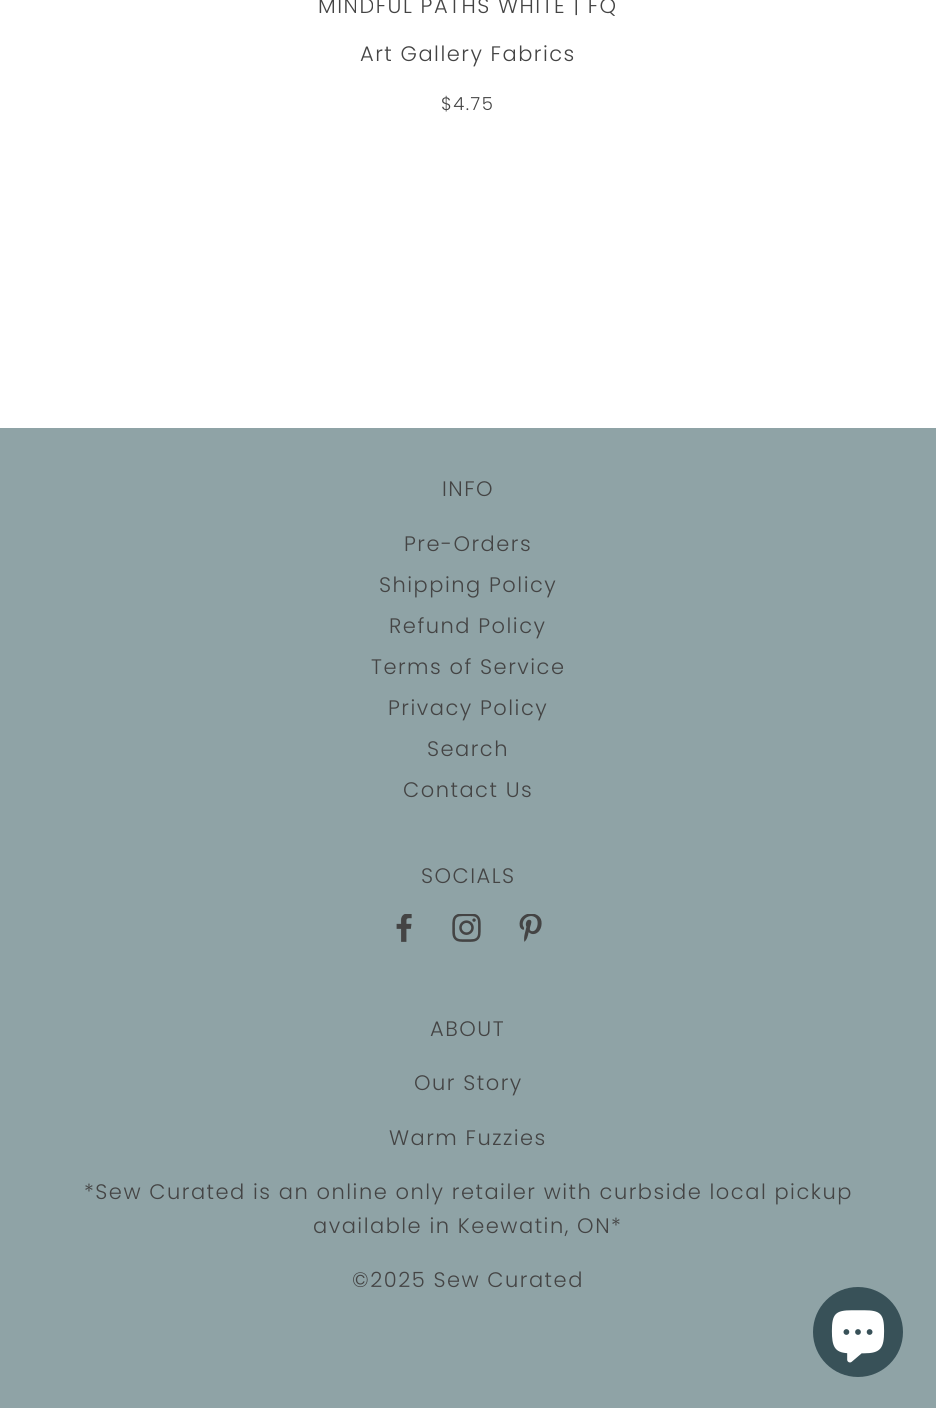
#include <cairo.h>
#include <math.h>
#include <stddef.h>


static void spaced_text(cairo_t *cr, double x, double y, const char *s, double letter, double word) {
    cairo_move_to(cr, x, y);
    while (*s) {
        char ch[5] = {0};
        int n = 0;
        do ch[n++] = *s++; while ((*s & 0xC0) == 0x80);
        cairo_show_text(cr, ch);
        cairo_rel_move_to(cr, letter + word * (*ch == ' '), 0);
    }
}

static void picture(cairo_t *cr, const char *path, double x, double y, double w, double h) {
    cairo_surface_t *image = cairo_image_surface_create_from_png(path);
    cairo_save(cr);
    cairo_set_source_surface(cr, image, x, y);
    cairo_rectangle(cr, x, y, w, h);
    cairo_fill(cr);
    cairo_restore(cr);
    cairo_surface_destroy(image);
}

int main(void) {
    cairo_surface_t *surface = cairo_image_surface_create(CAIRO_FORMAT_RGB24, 936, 1408);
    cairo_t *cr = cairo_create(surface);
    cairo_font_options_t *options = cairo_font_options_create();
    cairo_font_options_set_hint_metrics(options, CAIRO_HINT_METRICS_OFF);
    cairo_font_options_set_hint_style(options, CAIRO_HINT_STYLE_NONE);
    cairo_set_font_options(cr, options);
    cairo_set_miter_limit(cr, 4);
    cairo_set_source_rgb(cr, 1, 1, 1);
    cairo_paint(cr);
    cairo_select_font_face(cr, "Poppins Light", CAIRO_FONT_SLANT_NORMAL, CAIRO_FONT_WEIGHT_NORMAL);
    cairo_set_font_size(cr, 21);
    cairo_set_source_rgb(cr, 0.267, 0.267, 0.267);
    spaced_text(cr, 318, 13, "MINDFUL PATHS WHITE | FQ", 1.5, 0);
    spaced_text(cr, 360, 61, "Art Gallery Fabrics", 1.5, 0);
    cairo_set_font_size(cr, 18);
    spaced_text(cr, 441, 110, "$4.75", 1.5, 0);
    cairo_set_source_rgb(cr, 0.561, 0.639, 0.651);
    cairo_rectangle(cr, 0, 428, 936, 980);
    cairo_fill(cr);
    cairo_set_font_size(cr, 21);
    cairo_set_source_rgb(cr, 0.267, 0.267, 0.267);
    spaced_text(cr, 442, 496, "INFO", 1.5, 0);
    spaced_text(cr, 404, 551, "Pre-Orders", 1.5, 0);
    spaced_text(cr, 379, 592, "Shipping Policy", 1.5, 0);
    spaced_text(cr, 389, 633, "Refund Policy", 1.5, 0);
    spaced_text(cr, 371, 674, "Terms of Service", 1.5, 0);
    spaced_text(cr, 388, 715, "Privacy Policy", 1.5, 0);
    spaced_text(cr, 427, 756, "Search", 1.5, 0);
    spaced_text(cr, 403, 797, "Contact Us", 1.5, 0);
    spaced_text(cr, 421, 883, "SOCIALS", 1.5, 0);
    picture(cr, "img1.png", 396, 914, 16, 28);
    picture(cr, "img2.png", 452, 914, 29, 28);
    picture(cr, "img3.png", 519, 914, 23, 28);
    spaced_text(cr, 430, 1036, "ABOUT", 1.5, 0);
    spaced_text(cr, 414, 1090, "Our Story", 1.5, 0);
    spaced_text(cr, 389, 1145, "Warm Fuzzies", 1.5, 0);
    spaced_text(cr, 84, 1199, "*Sew Curated is an online only retailer with curbside local pickup", 1.5, 0);
    spaced_text(cr, 313, 1233, "available in Keewatin, ON*", 1.5, 0);
    spaced_text(cr, 352, 1287, "©2025 Sew Curated", 1.5, 0);
    cairo_set_source_rgb(cr, 0.22, 0.318, 0.345);
    cairo_new_path(cr);
    cairo_arc(cr, 858, 1332, 45, 0, 2 * M_PI);
    cairo_fill(cr);
    picture(cr, "img4.png", 831, 1310, 54, 53);
    cairo_surface_write_to_png(surface, "page.png");
    cairo_font_options_destroy(options);
    cairo_destroy(cr);
    cairo_surface_destroy(surface);
    return 0;
}
